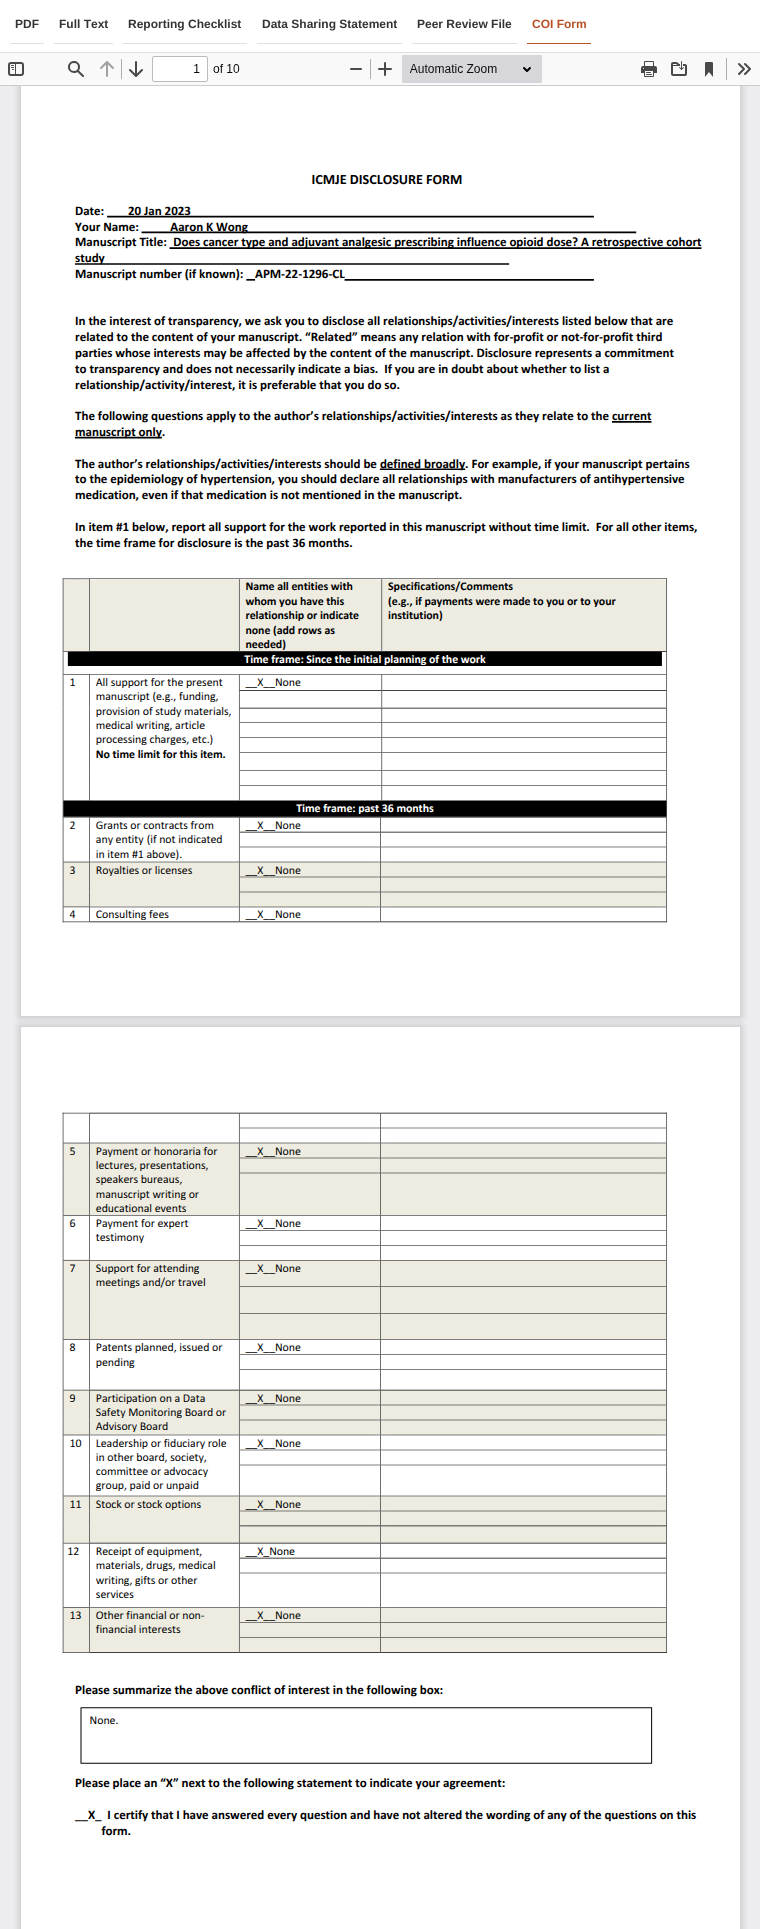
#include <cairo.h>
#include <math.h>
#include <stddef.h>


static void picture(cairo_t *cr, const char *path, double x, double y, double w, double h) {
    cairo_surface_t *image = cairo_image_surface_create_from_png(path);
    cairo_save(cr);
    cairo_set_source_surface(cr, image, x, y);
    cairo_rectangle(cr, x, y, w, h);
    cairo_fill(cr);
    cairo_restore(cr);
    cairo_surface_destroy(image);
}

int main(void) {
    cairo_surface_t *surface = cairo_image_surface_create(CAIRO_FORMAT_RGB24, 760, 1929);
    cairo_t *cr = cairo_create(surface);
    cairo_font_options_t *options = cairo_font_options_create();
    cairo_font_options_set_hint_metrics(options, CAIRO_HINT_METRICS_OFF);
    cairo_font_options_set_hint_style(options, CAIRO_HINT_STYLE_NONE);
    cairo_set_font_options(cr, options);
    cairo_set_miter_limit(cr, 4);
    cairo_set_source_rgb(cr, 1, 1, 1);
    cairo_paint(cr);
    cairo_set_source_rgb(cr, 0.878, 0.878, 0.878);
    cairo_rectangle(cr, 0, 52, 760, 1);
    cairo_fill(cr);
    cairo_rectangle(cr, 10, 43, 34, 1);
    cairo_fill(cr);
    cairo_select_font_face(cr, "Liberation Sans", CAIRO_FONT_SLANT_NORMAL, CAIRO_FONT_WEIGHT_BOLD);
    cairo_set_font_size(cr, 12);
    cairo_set_source_rgb(cr, 0.2, 0.2, 0.2);
    cairo_move_to(cr, 15, 28);
    cairo_show_text(cr, "PDF");
    cairo_set_source_rgb(cr, 0.878, 0.878, 0.878);
    cairo_rectangle(cr, 54, 43, 59, 1);
    cairo_fill(cr);
    cairo_set_source_rgb(cr, 0.2, 0.2, 0.2);
    cairo_move_to(cr, 59, 28);
    cairo_show_text(cr, "Full Text");
    cairo_set_source_rgb(cr, 0.878, 0.878, 0.878);
    cairo_rectangle(cr, 123, 43, 124, 1);
    cairo_fill(cr);
    cairo_set_source_rgb(cr, 0.2, 0.2, 0.2);
    cairo_move_to(cr, 128, 28);
    cairo_show_text(cr, "Reporting Checklist");
    cairo_set_source_rgb(cr, 0.878, 0.878, 0.878);
    cairo_rectangle(cr, 257, 43, 145, 1);
    cairo_fill(cr);
    cairo_set_source_rgb(cr, 0.2, 0.2, 0.2);
    cairo_move_to(cr, 262, 28);
    cairo_show_text(cr, "Data Sharing Statement");
    cairo_set_source_rgb(cr, 0.878, 0.878, 0.878);
    cairo_rectangle(cr, 412, 43, 105, 1);
    cairo_fill(cr);
    cairo_set_source_rgb(cr, 0.2, 0.2, 0.2);
    cairo_move_to(cr, 417, 28);
    cairo_show_text(cr, "Peer Review File");
    cairo_set_source_rgb(cr, 0.718, 0.314, 0.141);
    cairo_rectangle(cr, 527, 43, 64, 1);
    cairo_fill(cr);
    cairo_move_to(cr, 532, 28);
    cairo_show_text(cr, "COI Form");
    picture(cr, "img1.png", 0, 53, 760, 1876);
    cairo_surface_write_to_png(surface, "page.png");
    cairo_font_options_destroy(options);
    cairo_destroy(cr);
    cairo_surface_destroy(surface);
    return 0;
}
